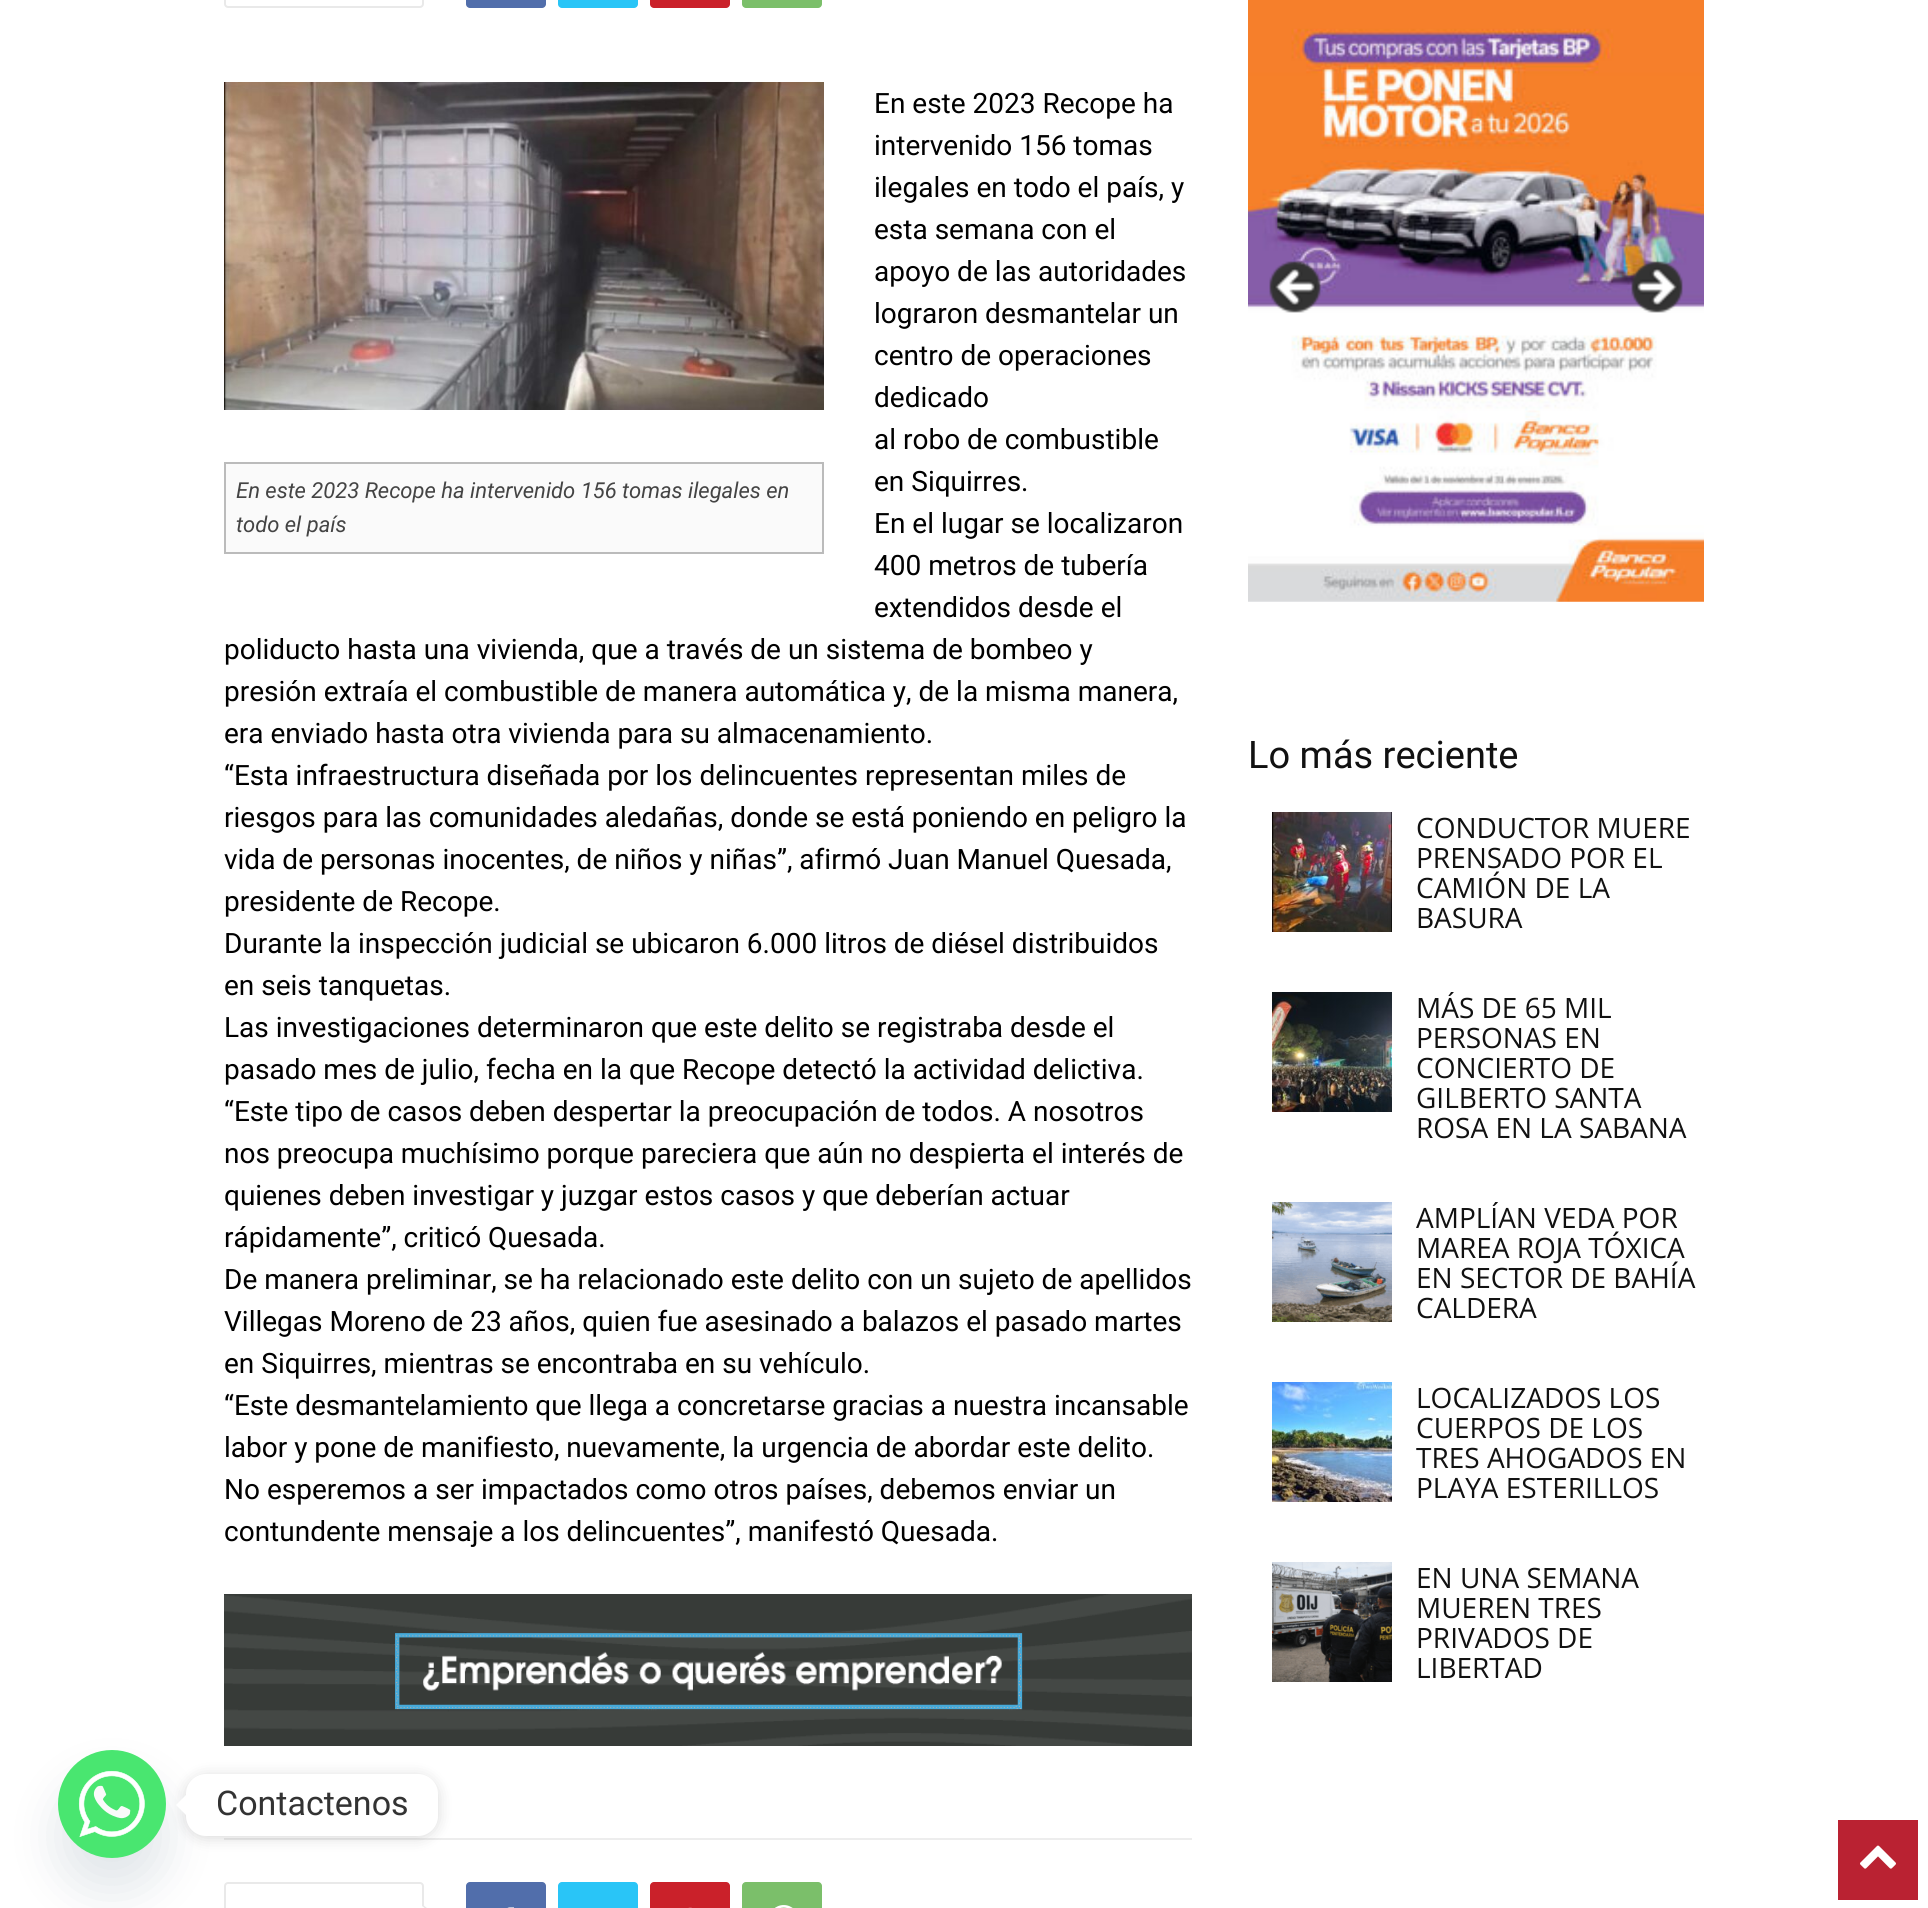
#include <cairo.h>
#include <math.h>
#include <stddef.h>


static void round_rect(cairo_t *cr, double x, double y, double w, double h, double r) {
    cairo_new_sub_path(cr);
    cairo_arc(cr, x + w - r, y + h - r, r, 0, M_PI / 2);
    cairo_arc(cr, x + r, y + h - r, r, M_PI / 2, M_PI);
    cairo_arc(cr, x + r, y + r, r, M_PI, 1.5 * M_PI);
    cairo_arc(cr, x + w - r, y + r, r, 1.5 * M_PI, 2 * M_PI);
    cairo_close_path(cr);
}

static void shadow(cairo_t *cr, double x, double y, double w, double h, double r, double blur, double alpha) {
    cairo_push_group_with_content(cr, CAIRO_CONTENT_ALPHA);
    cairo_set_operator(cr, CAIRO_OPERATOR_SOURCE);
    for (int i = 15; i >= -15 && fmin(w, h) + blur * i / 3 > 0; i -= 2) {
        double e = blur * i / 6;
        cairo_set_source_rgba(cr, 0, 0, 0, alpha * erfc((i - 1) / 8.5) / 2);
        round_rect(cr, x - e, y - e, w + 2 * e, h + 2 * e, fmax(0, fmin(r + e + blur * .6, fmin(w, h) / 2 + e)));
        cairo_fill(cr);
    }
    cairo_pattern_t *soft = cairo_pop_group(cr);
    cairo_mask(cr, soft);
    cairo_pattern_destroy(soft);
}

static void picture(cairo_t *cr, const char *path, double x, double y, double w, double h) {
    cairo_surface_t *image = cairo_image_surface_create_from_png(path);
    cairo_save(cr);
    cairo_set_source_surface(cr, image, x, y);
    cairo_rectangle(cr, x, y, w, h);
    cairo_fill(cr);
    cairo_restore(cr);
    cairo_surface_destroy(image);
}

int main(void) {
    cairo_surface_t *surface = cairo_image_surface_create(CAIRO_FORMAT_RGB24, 1928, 1908);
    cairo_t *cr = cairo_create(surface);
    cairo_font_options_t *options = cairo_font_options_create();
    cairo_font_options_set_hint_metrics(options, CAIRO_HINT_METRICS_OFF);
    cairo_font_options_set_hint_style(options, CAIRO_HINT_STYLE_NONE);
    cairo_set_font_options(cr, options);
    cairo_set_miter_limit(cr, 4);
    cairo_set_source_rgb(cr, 1, 1, 1);
    cairo_paint(cr);
    round_rect(cr, 225, -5, 198, 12, 3);
    cairo_set_source_rgb(cr, 0.914, 0.914, 0.914);
    cairo_stroke(cr);
    cairo_set_source_rgb(cr, 0.318, 0.431, 0.671);
    round_rect(cr, 466, -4, 80, 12, 4);
    cairo_fill(cr);
    cairo_set_source_rgb(cr, 0.161, 0.773, 0.965);
    round_rect(cr, 558, -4, 80, 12, 4);
    cairo_fill(cr);
    cairo_set_source_rgb(cr, 0.792, 0.129, 0.165);
    round_rect(cr, 650, -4, 80, 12, 4);
    cairo_fill(cr);
    cairo_set_source_rgb(cr, 0.482, 0.749, 0.416);
    round_rect(cr, 742, -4, 80, 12, 4);
    cairo_fill(cr);
    cairo_select_font_face(cr, "Roboto", CAIRO_FONT_SLANT_NORMAL, CAIRO_FONT_WEIGHT_NORMAL);
    cairo_set_font_size(cr, 28);
    cairo_set_source_rgb(cr, 0, 0, 0);
    cairo_move_to(cr, 874, 113);
    cairo_show_text(cr, "En este 2023 Recope ha");
    cairo_move_to(cr, 874, 155);
    cairo_show_text(cr, "intervenido 156 tomas");
    cairo_move_to(cr, 874, 197);
    cairo_show_text(cr, "ilegales en todo el país, y");
    cairo_move_to(cr, 874, 239);
    cairo_show_text(cr, "esta semana con el");
    cairo_move_to(cr, 874, 281);
    cairo_show_text(cr, "apoyo de las autoridades");
    cairo_move_to(cr, 874, 323);
    cairo_show_text(cr, "lograron desmantelar un");
    cairo_move_to(cr, 874, 365);
    cairo_show_text(cr, "centro de operaciones");
    cairo_move_to(cr, 874, 407);
    cairo_show_text(cr, "dedicado");
    cairo_move_to(cr, 874, 449);
    cairo_show_text(cr, "al robo de combustible");
    cairo_move_to(cr, 874, 491);
    cairo_show_text(cr, "en Siquirres.");
    cairo_move_to(cr, 874, 533);
    cairo_show_text(cr, "En el lugar se localizaron");
    cairo_move_to(cr, 874, 575);
    cairo_show_text(cr, "400 metros de tubería");
    cairo_move_to(cr, 874, 617);
    cairo_show_text(cr, "extendidos desde el");
    cairo_move_to(cr, 224, 659);
    cairo_show_text(cr, "poliducto hasta una vivienda, que a través de un sistema de bombeo y");
    cairo_move_to(cr, 224, 701);
    cairo_show_text(cr, "presión extraía el combustible de manera automática y, de la misma manera,");
    cairo_move_to(cr, 224, 743);
    cairo_show_text(cr, "era enviado hasta otra vivienda para su almacenamiento.");
    cairo_move_to(cr, 224, 785);
    cairo_show_text(cr, "“Esta infraestructura diseñada por los delincuentes representan miles de");
    cairo_move_to(cr, 224, 827);
    cairo_show_text(cr, "riesgos para las comunidades aledañas, donde se está poniendo en peligro la");
    cairo_move_to(cr, 224, 869);
    cairo_show_text(cr, "vida de personas inocentes, de niños y niñas”, afirmó Juan Manuel Quesada,");
    cairo_move_to(cr, 224, 911);
    cairo_show_text(cr, "presidente de Recope.");
    cairo_move_to(cr, 224, 953);
    cairo_show_text(cr, "Durante la inspección judicial se ubicaron 6.000 litros de diésel distribuidos");
    cairo_move_to(cr, 224, 995);
    cairo_show_text(cr, "en seis tanquetas.");
    cairo_move_to(cr, 224, 1037);
    cairo_show_text(cr, "Las investigaciones determinaron que este delito se registraba desde el");
    cairo_move_to(cr, 224, 1079);
    cairo_show_text(cr, "pasado mes de julio, fecha en la que Recope detectó la actividad delictiva.");
    cairo_move_to(cr, 224, 1121);
    cairo_show_text(cr, "“Este tipo de casos deben despertar la preocupación de todos. A nosotros");
    cairo_move_to(cr, 224, 1163);
    cairo_show_text(cr, "nos preocupa muchísimo porque pareciera que aún no despierta el interés de");
    cairo_move_to(cr, 224, 1205);
    cairo_show_text(cr, "quienes deben investigar y juzgar estos casos y que deberían actuar");
    cairo_move_to(cr, 224, 1247);
    cairo_show_text(cr, "rápidamente”, criticó Quesada.");
    cairo_move_to(cr, 224, 1289);
    cairo_show_text(cr, "De manera preliminar, se ha relacionado este delito con un sujeto de apellidos");
    cairo_move_to(cr, 224, 1331);
    cairo_show_text(cr, "Villegas Moreno de 23 años, quien fue asesinado a balazos el pasado martes");
    cairo_move_to(cr, 224, 1373);
    cairo_show_text(cr, "en Siquirres, mientras se encontraba en su vehículo.");
    cairo_move_to(cr, 224, 1415);
    cairo_show_text(cr, "“Este desmantelamiento que llega a concretarse gracias a nuestra incansable");
    cairo_move_to(cr, 224, 1457);
    cairo_show_text(cr, "labor y pone de manifiesto, nuevamente, la urgencia de abordar este delito.");
    cairo_move_to(cr, 224, 1499);
    cairo_show_text(cr, "No esperemos a ser impactados como otros países, debemos enviar un");
    cairo_move_to(cr, 224, 1541);
    cairo_show_text(cr, "contundente mensaje a los delincuentes”, manifestó Quesada.");
    picture(cr, "img1.png", 224, 82, 600, 328);
    cairo_set_source_rgb(cr, 0.98, 0.98, 0.98);
    cairo_rectangle(cr, 225, 463, 598, 90);
    cairo_fill_preserve(cr);
    cairo_set_source_rgb(cr, 0.733, 0.733, 0.733);
    cairo_stroke(cr);
    cairo_select_font_face(cr, "Roboto", CAIRO_FONT_SLANT_ITALIC, CAIRO_FONT_WEIGHT_NORMAL);
    cairo_set_font_size(cr, 22);
    cairo_set_source_rgb(cr, 0.267, 0.267, 0.267);
    cairo_move_to(cr, 236, 498);
    cairo_show_text(cr, "En este 2023 Recope ha intervenido 156 tomas ilegales en");
    cairo_move_to(cr, 236, 532);
    cairo_show_text(cr, "todo el país");
    picture(cr, "img2.png", 224, 1594, 968, 152);
    cairo_set_source_rgb(cr, 0.929, 0.929, 0.929);
    cairo_rectangle(cr, 224, 1838, 968, 2);
    cairo_fill(cr);
    round_rect(cr, 225, 1883, 198, 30, 3);
    cairo_set_source_rgb(cr, 0.914, 0.914, 0.914);
    cairo_stroke(cr);
    cairo_new_path(cr);
    cairo_move_to(cr, 422, 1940);
    cairo_line_to(cr, 422, 1904);
    cairo_line_to(cr, 444, 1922);
    cairo_close_path(cr);
    cairo_fill(cr);
    cairo_set_source_rgb(cr, 1, 1, 1);
    cairo_new_path(cr);
    cairo_move_to(cr, 422, 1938);
    cairo_line_to(cr, 422, 1906);
    cairo_line_to(cr, 442, 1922);
    cairo_close_path(cr);
    cairo_fill(cr);
    cairo_set_source_rgb(cr, 0.318, 0.431, 0.671);
    round_rect(cr, 466, 1882, 80, 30, 4);
    cairo_fill(cr);
    picture(cr, "img3.png", 507, 1907, 7, 1);
    cairo_set_source_rgb(cr, 0.161, 0.773, 0.965);
    round_rect(cr, 558, 1882, 80, 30, 4);
    cairo_fill(cr);
    cairo_set_source_rgb(cr, 0.792, 0.129, 0.165);
    round_rect(cr, 650, 1882, 80, 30, 4);
    cairo_fill(cr);
    picture(cr, "img4.png", 688, 1907, 4, 1);
    cairo_set_source_rgb(cr, 0.482, 0.749, 0.416);
    round_rect(cr, 742, 1882, 80, 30, 4);
    cairo_fill(cr);
    picture(cr, "img5.png", 775, 1905, 18, 3);
    picture(cr, "img6.png", 1248, 0, 456, 602);
    picture(cr, "img7.png", 1269, 261, 52, 52);
    picture(cr, "img8.png", 1631, 261, 52, 52);
    cairo_select_font_face(cr, "Roboto", CAIRO_FONT_SLANT_NORMAL, CAIRO_FONT_WEIGHT_NORMAL);
    cairo_set_font_size(cr, 38);
    cairo_set_source_rgb(cr, 0.067, 0.067, 0.067);
    cairo_move_to(cr, 1248, 768);
    cairo_show_text(cr, "Lo más reciente");
    picture(cr, "img9.png", 1272, 812, 120, 120);
    cairo_select_font_face(cr, "Open Sans", CAIRO_FONT_SLANT_NORMAL, CAIRO_FONT_WEIGHT_NORMAL);
    cairo_set_font_size(cr, 28);
    cairo_move_to(cr, 1416, 838);
    cairo_show_text(cr, "CONDUCTOR MUERE");
    cairo_move_to(cr, 1416, 868);
    cairo_show_text(cr, "PRENSADO POR EL");
    cairo_move_to(cr, 1416, 898);
    cairo_show_text(cr, "CAMIÓN DE LA");
    cairo_move_to(cr, 1416, 928);
    cairo_show_text(cr, "BASURA");
    picture(cr, "img10.png", 1272, 992, 120, 120);
    cairo_save(cr);
    cairo_rectangle(cr, 1416, 992, 282, 150);
    cairo_clip(cr);
    cairo_move_to(cr, 1416, 1018);
    cairo_show_text(cr, "MÁS DE 65 MIL");
    cairo_restore(cr);
    cairo_move_to(cr, 1416, 1048);
    cairo_show_text(cr, "PERSONAS EN");
    cairo_move_to(cr, 1416, 1078);
    cairo_show_text(cr, "CONCIERTO DE");
    cairo_move_to(cr, 1416, 1108);
    cairo_show_text(cr, "GILBERTO SANTA");
    cairo_move_to(cr, 1416, 1138);
    cairo_show_text(cr, "ROSA EN LA SABANA");
    picture(cr, "img11.png", 1272, 1202, 120, 120);
    cairo_save(cr);
    cairo_rectangle(cr, 1416, 1202, 282, 120);
    cairo_clip(cr);
    cairo_move_to(cr, 1416, 1228);
    cairo_show_text(cr, "AMPLÍAN VEDA POR");
    cairo_restore(cr);
    cairo_move_to(cr, 1416, 1258);
    cairo_show_text(cr, "MAREA ROJA TÓXICA");
    cairo_move_to(cr, 1416, 1288);
    cairo_show_text(cr, "EN SECTOR DE BAHÍA");
    cairo_move_to(cr, 1416, 1318);
    cairo_show_text(cr, "CALDERA");
    picture(cr, "img12.png", 1272, 1382, 120, 120);
    cairo_move_to(cr, 1416, 1408);
    cairo_show_text(cr, "LOCALIZADOS LOS");
    cairo_move_to(cr, 1416, 1438);
    cairo_show_text(cr, "CUERPOS DE LOS");
    cairo_move_to(cr, 1416, 1468);
    cairo_show_text(cr, "TRES AHOGADOS EN");
    cairo_move_to(cr, 1416, 1498);
    cairo_show_text(cr, "PLAYA ESTERILLOS");
    picture(cr, "img13.png", 1272, 1562, 120, 120);
    cairo_move_to(cr, 1416, 1588);
    cairo_show_text(cr, "EN UNA SEMANA");
    cairo_move_to(cr, 1416, 1618);
    cairo_show_text(cr, "MUEREN TRES");
    cairo_move_to(cr, 1416, 1648);
    cairo_show_text(cr, "PRIVADOS DE");
    cairo_move_to(cr, 1416, 1678);
    cairo_show_text(cr, "LIBERTAD");
    cairo_set_source_rgb(cr, 0.286, 0.408, 0.494);
    shadow(cr, 58, 1782, 108, 108, 54, 24, 0.16);
    picture(cr, "img14.png", 58, 1750, 108, 108);
    cairo_set_source_rgb(cr, 0, 0, 0);
    shadow(cr, 186, 1776, 252, 62, 20, 7.5, 0.15);
    cairo_set_source_rgb(cr, 1, 1, 1);
    round_rect(cr, 186, 1774, 252, 62, 20);
    cairo_fill(cr);
    cairo_new_path(cr);
    cairo_move_to(cr, 186, 1795);
    cairo_line_to(cr, 186, 1815);
    cairo_line_to(cr, 176, 1805);
    cairo_close_path(cr);
    cairo_fill(cr);
    cairo_select_font_face(cr, "Roboto", CAIRO_FONT_SLANT_NORMAL, CAIRO_FONT_WEIGHT_NORMAL);
    cairo_set_font_size(cr, 34);
    cairo_set_source_rgb(cr, 0.2, 0.2, 0.2);
    cairo_move_to(cr, 216, 1815);
    cairo_show_text(cr, "Contactenos");
    cairo_set_source_rgb(cr, 0.729, 0.133, 0.196);
    cairo_rectangle(cr, 1838, 1820, 80, 80);
    cairo_fill(cr);
    picture(cr, "img15.png", 1860, 1845, 36, 24);
    cairo_surface_write_to_png(surface, "page.png");
    cairo_font_options_destroy(options);
    cairo_destroy(cr);
    cairo_surface_destroy(surface);
    return 0;
}
